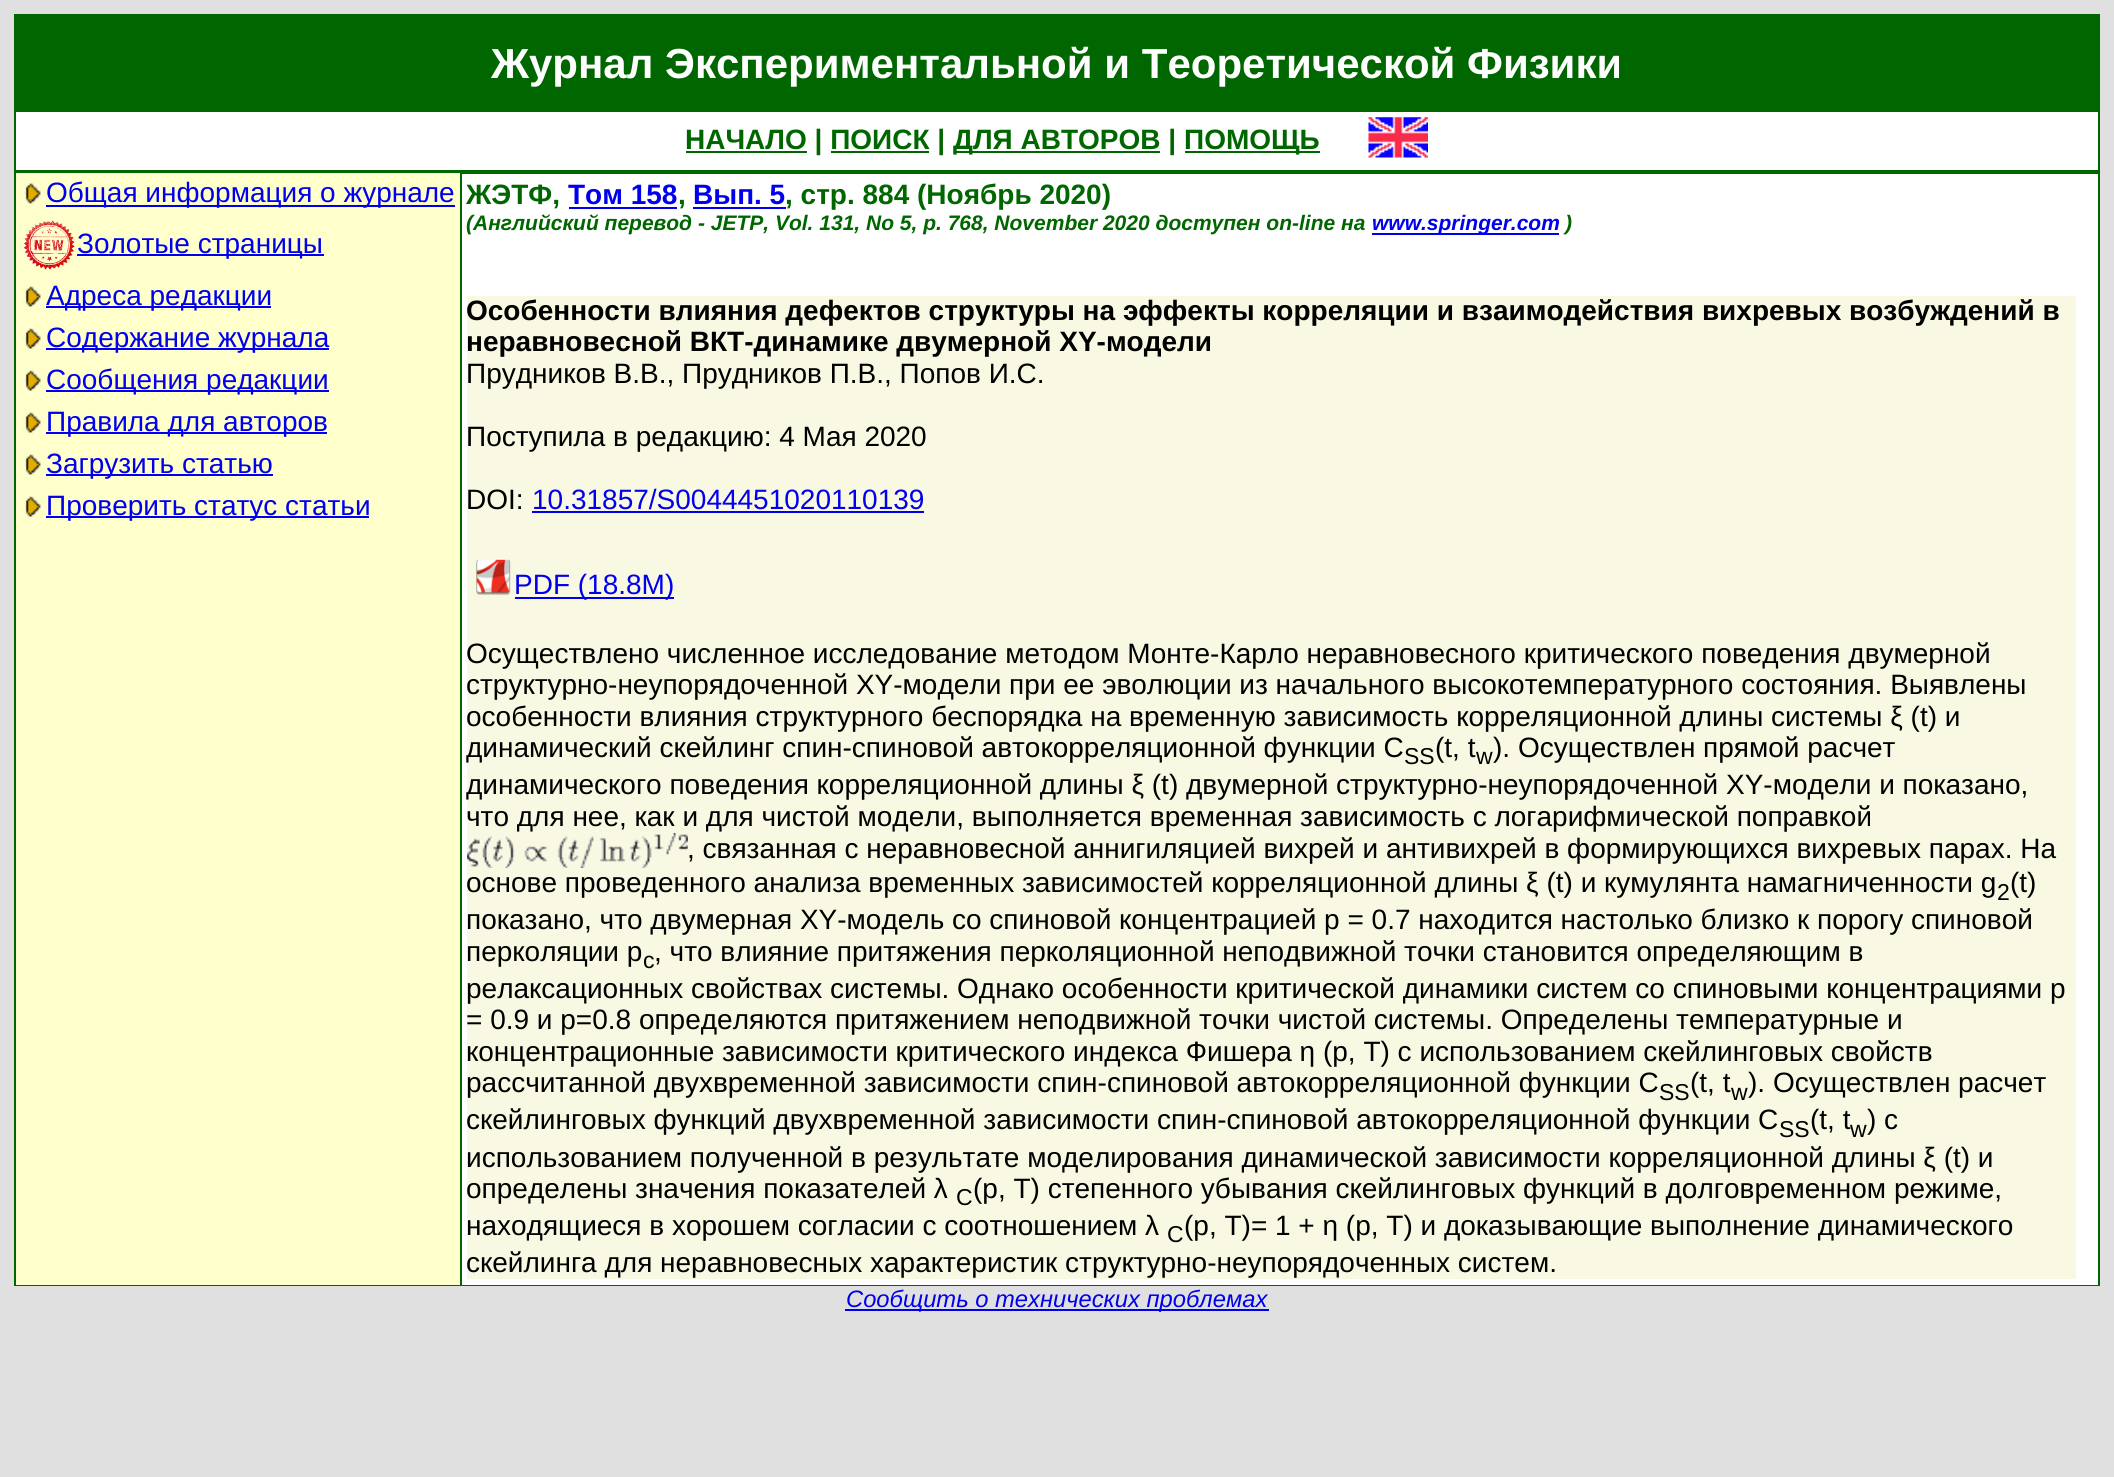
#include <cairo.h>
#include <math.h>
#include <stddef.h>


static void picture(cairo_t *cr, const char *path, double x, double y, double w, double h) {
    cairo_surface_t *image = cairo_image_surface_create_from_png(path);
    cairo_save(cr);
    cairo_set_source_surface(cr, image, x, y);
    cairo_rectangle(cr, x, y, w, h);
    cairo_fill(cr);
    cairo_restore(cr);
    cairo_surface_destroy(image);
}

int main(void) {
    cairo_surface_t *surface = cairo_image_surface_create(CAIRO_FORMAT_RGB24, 2114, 1477);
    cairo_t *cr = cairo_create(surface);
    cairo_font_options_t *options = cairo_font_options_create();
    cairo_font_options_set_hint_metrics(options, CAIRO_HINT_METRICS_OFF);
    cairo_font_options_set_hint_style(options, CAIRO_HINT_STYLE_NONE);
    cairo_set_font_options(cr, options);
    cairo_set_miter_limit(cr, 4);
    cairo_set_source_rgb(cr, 0.878, 0.878, 0.878);
    cairo_paint(cr);
    cairo_set_source_rgb(cr, 0, 0.4, 0);
    cairo_rectangle(cr, 14, 14, 2086, 1272);
    cairo_fill(cr);
    cairo_set_source_rgb(cr, 1, 1, 1);
    cairo_rectangle(cr, 16, 112, 2082, 1173);
    cairo_fill(cr);
    cairo_select_font_face(cr, "Liberation Sans", CAIRO_FONT_SLANT_NORMAL, CAIRO_FONT_WEIGHT_BOLD);
    cairo_set_font_size(cr, 42);
    cairo_move_to(cr, 491, 78);
    cairo_show_text(cr, "Журнал Экспериментальной и Теоретической Физики");
    cairo_set_source_rgb(cr, 0, 0.4, 0);
    cairo_rectangle(cr, 686, 151, 121, 2);
    cairo_fill(cr);
    cairo_set_font_size(cr, 28);
    cairo_move_to(cr, 685, 149);
    cairo_show_text(cr, "НАЧАЛО | ПОИСК |");
    cairo_rectangle(cr, 954, 151, 206, 2);
    cairo_fill(cr);
    cairo_move_to(cr, 953, 149);
    cairo_show_text(cr, "ДЛЯ АВТОРОВ |");
    cairo_rectangle(cr, 1185, 151, 135, 2);
    cairo_fill(cr);
    cairo_move_to(cr, 1184, 149);
    cairo_show_text(cr, "ПОМОЩЬ");
    cairo_rectangle(cr, 831, 151, 98, 2);
    cairo_fill(cr);
    picture(cr, "img1.png", 1368, 117, 60, 41);
    cairo_rectangle(cr, 16, 170, 2082, 4);
    cairo_fill(cr);
    cairo_set_source_rgb(cr, 1, 1, 0.8);
    cairo_rectangle(cr, 16, 173, 444, 1112);
    cairo_fill(cr);
    picture(cr, "img2.png", 24, 183, 17, 21);
    cairo_set_source_rgb(cr, 0, 0, 0.933);
    cairo_rectangle(cr, 46, 205, 409, 2);
    cairo_fill(cr);
    cairo_select_font_face(cr, "Liberation Sans", CAIRO_FONT_SLANT_NORMAL, CAIRO_FONT_WEIGHT_NORMAL);
    cairo_move_to(cr, 46, 202);
    cairo_show_text(cr, "Общая информация о журнале");
    picture(cr, "img3.png", 21, 220, 54, 50);
    cairo_rectangle(cr, 77, 254, 247, 2);
    cairo_fill(cr);
    cairo_move_to(cr, 77, 253);
    cairo_show_text(cr, "Золотые страницы");
    picture(cr, "img4.png", 24, 286, 17, 21);
    cairo_rectangle(cr, 46, 306, 225, 2);
    cairo_fill(cr);
    cairo_move_to(cr, 46, 305);
    cairo_show_text(cr, "Адреса редакции");
    picture(cr, "img4.png", 24, 328, 17, 21);
    cairo_rectangle(cr, 46, 348, 283, 2);
    cairo_fill(cr);
    cairo_move_to(cr, 46, 347);
    cairo_show_text(cr, "Содержание журнала");
    picture(cr, "img4.png", 24, 370, 17, 21);
    cairo_rectangle(cr, 46, 390, 283, 2);
    cairo_fill(cr);
    cairo_move_to(cr, 46, 389);
    cairo_show_text(cr, "Сообщения редакции");
    picture(cr, "img4.png", 24, 412, 17, 21);
    cairo_rectangle(cr, 46, 432, 281, 2);
    cairo_fill(cr);
    cairo_move_to(cr, 46, 431);
    cairo_show_text(cr, "Правила для авторов");
    picture(cr, "img4.png", 24, 454, 17, 21);
    cairo_rectangle(cr, 46, 474, 227, 2);
    cairo_fill(cr);
    cairo_move_to(cr, 46, 473);
    cairo_show_text(cr, "Загрузить статью");
    picture(cr, "img4.png", 24, 496, 17, 21);
    cairo_rectangle(cr, 46, 516, 323, 2);
    cairo_fill(cr);
    cairo_move_to(cr, 46, 515);
    cairo_show_text(cr, "Проверить статус статьи");
    cairo_set_source_rgb(cr, 0, 0.4, 0);
    cairo_rectangle(cr, 460, 173, 2, 1112);
    cairo_fill(cr);
    cairo_select_font_face(cr, "Liberation Sans", CAIRO_FONT_SLANT_NORMAL, CAIRO_FONT_WEIGHT_BOLD);
    cairo_move_to(cr, 466, 204);
    cairo_show_text(cr, "ЖЭТФ,");
    cairo_set_source_rgb(cr, 0, 0, 0.933);
    cairo_move_to(cr, 568, 204);
    cairo_show_text(cr, "Том 158");
    cairo_set_source_rgb(cr, 0, 0.4, 0);
    cairo_move_to(cr, 678, 204);
    cairo_show_text(cr, ",");
    cairo_set_source_rgb(cr, 0, 0, 0.933);
    cairo_rectangle(cr, 569, 207, 108, 2);
    cairo_fill(cr);
    cairo_rectangle(cr, 693, 207, 93, 2);
    cairo_fill(cr);
    cairo_move_to(cr, 693, 204);
    cairo_show_text(cr, "Вып. 5");
    cairo_set_source_rgb(cr, 0, 0.4, 0);
    cairo_move_to(cr, 785, 204);
    cairo_show_text(cr, ", стр. 884 (Ноябрь 2020)");
    cairo_select_font_face(cr, "Liberation Sans", CAIRO_FONT_SLANT_ITALIC, CAIRO_FONT_WEIGHT_BOLD);
    cairo_set_font_size(cr, 21);
    cairo_move_to(cr, 466, 230);
    cairo_show_text(cr, "(Английский перевод - JETP, Vol. 131, No 5, p. 768, November 2020 доступен on-line на");
    cairo_set_source_rgb(cr, 0, 0, 0.933);
    cairo_rectangle(cr, 1372, 233, 187, 2);
    cairo_fill(cr);
    cairo_move_to(cr, 1372, 230);
    cairo_show_text(cr, "www.springer.com");
    cairo_set_source_rgb(cr, 0, 0.4, 0);
    cairo_move_to(cr, 1565, 230);
    cairo_show_text(cr, ")");
    cairo_set_source_rgb(cr, 0.973, 0.973, 0.89);
    cairo_rectangle(cr, 467, 296, 1609, 983);
    cairo_fill(cr);
    cairo_select_font_face(cr, "Liberation Sans", CAIRO_FONT_SLANT_NORMAL, CAIRO_FONT_WEIGHT_BOLD);
    cairo_set_font_size(cr, 28);
    cairo_set_source_rgb(cr, 0, 0, 0);
    cairo_move_to(cr, 466, 320);
    cairo_show_text(cr, "Особенности влияния дефектов структуры на эффекты корреляции и взаимодействия вихревых возбуждений в");
    cairo_move_to(cr, 466, 351);
    cairo_show_text(cr, "неравновесной ВКТ-динамике двумерной XY-модели");
    cairo_select_font_face(cr, "Liberation Sans", CAIRO_FONT_SLANT_NORMAL, CAIRO_FONT_WEIGHT_NORMAL);
    cairo_move_to(cr, 466, 383);
    cairo_show_text(cr, "Прудников В.В., Прудников П.В., Попов И.С.");
    cairo_move_to(cr, 466, 446);
    cairo_show_text(cr, "Поступила в редакцию: 4 Мая 2020");
    cairo_move_to(cr, 466, 509);
    cairo_show_text(cr, "DOI:");
    cairo_set_source_rgb(cr, 0, 0, 0.933);
    cairo_move_to(cr, 532, 509);
    cairo_show_text(cr, "10.31857/S0044451020110139");
    cairo_rectangle(cr, 532, 511, 392, 2);
    cairo_fill(cr);
    picture(cr, "img5.png", 476, 559, 35, 36);
    cairo_rectangle(cr, 515, 597, 159, 2);
    cairo_fill(cr);
    cairo_move_to(cr, 514, 594);
    cairo_show_text(cr, "PDF (18.8M)");
    cairo_set_source_rgb(cr, 0, 0, 0);
    cairo_move_to(cr, 466, 663);
    cairo_show_text(cr, "Осуществлено численное исследование методом Монте-Карло неравновесного критического поведения двумерной");
    cairo_move_to(cr, 466, 694);
    cairo_show_text(cr, "структурно-неупорядоченной XY-модели при ее эволюции из начального высокотемпературного состояния. Выявлены");
    cairo_move_to(cr, 466, 726);
    cairo_show_text(cr, "особенности влияния структурного беспорядка на временную зависимость корреляционной длины системы ξ (t) и");
    cairo_move_to(cr, 466, 757);
    cairo_show_text(cr, "динамический скейлинг спин-спиновой автокорреляционной функции C");
    cairo_set_font_size(cr, 23);
    cairo_move_to(cr, 1404, 764);
    cairo_show_text(cr, "SS");
    cairo_set_font_size(cr, 28);
    cairo_move_to(cr, 1435, 757);
    cairo_show_text(cr, "(t, t");
    cairo_set_font_size(cr, 23);
    cairo_move_to(cr, 1476, 764);
    cairo_show_text(cr, "w");
    cairo_set_font_size(cr, 28);
    cairo_move_to(cr, 1493, 757);
    cairo_show_text(cr, "). Осуществлен прямой расчет");
    cairo_move_to(cr, 466, 794);
    cairo_show_text(cr, "динамического поведения корреляционной длины ξ (t) двумерной структурно-неупорядоченной XY-модели и показано,");
    cairo_move_to(cr, 466, 826);
    cairo_show_text(cr, "что для нее, как и для чистой модели, выполняется временная зависимость с логарифмической поправкой");
    picture(cr, "img6.png", 467, 833, 221, 35);
    cairo_move_to(cr, 687, 858);
    cairo_show_text(cr, ", связанная с неравновесной аннигиляцией вихрей и антивихрей в формирующихся вихревых парах. На");
    cairo_move_to(cr, 466, 892);
    cairo_show_text(cr, "основе проведенного анализа временных зависимостей корреляционной длины ξ (t) и кумулянта намагниченности g");
    cairo_set_font_size(cr, 23);
    cairo_move_to(cr, 1997, 900);
    cairo_show_text(cr, "2");
    cairo_set_font_size(cr, 28);
    cairo_move_to(cr, 2010, 892);
    cairo_show_text(cr, "(t)");
    cairo_move_to(cr, 466, 929);
    cairo_show_text(cr, "показано, что двумерная XY-модель со спиновой концентрацией p = 0.7 находится настолько близко к порогу спиновой");
    cairo_move_to(cr, 466, 961);
    cairo_show_text(cr, "перколяции p");
    cairo_set_font_size(cr, 23);
    cairo_move_to(cr, 643, 968);
    cairo_show_text(cr, "c");
    cairo_set_font_size(cr, 28);
    cairo_move_to(cr, 654, 961);
    cairo_show_text(cr, ", что влияние притяжения перколяционной неподвижной точки становится определяющим в");
    cairo_move_to(cr, 466, 998);
    cairo_show_text(cr, "релаксационных свойствах системы. Однако особенности критической динамики систем со спиновыми концентрациями p");
    cairo_move_to(cr, 466, 1029);
    cairo_show_text(cr, "= 0.9 и p=0.8 определяются притяжением неподвижной точки чистой системы. Определены температурные и");
    cairo_move_to(cr, 466, 1061);
    cairo_show_text(cr, "концентрационные зависимости критического индекса Фишера η (p, T) с использованием скейлинговых свойств");
    cairo_move_to(cr, 466, 1092);
    cairo_show_text(cr, "рассчитанной двухвременной зависимости спин-спиновой автокорреляционной функции C");
    cairo_set_font_size(cr, 23);
    cairo_move_to(cr, 1659, 1100);
    cairo_show_text(cr, "SS");
    cairo_set_font_size(cr, 28);
    cairo_move_to(cr, 1690, 1092);
    cairo_show_text(cr, "(t, t");
    cairo_set_font_size(cr, 23);
    cairo_move_to(cr, 1731, 1100);
    cairo_show_text(cr, "w");
    cairo_set_font_size(cr, 28);
    cairo_move_to(cr, 1748, 1092);
    cairo_show_text(cr, "). Осуществлен расчет");
    cairo_move_to(cr, 466, 1129);
    cairo_show_text(cr, "скейлинговых функций двухвременной зависимости спин-спиновой автокорреляционной функции C");
    cairo_set_font_size(cr, 23);
    cairo_move_to(cr, 1779, 1137);
    cairo_show_text(cr, "SS");
    cairo_set_font_size(cr, 28);
    cairo_move_to(cr, 1810, 1129);
    cairo_show_text(cr, "(t, t");
    cairo_set_font_size(cr, 23);
    cairo_move_to(cr, 1850, 1137);
    cairo_show_text(cr, "w");
    cairo_set_font_size(cr, 28);
    cairo_move_to(cr, 1867, 1129);
    cairo_show_text(cr, ") с");
    cairo_move_to(cr, 466, 1167);
    cairo_show_text(cr, "использованием полученной в результате моделирования динамической зависимости корреляционной длины ξ (t) и");
    cairo_move_to(cr, 466, 1198);
    cairo_show_text(cr, "определены значения показателей λ");
    cairo_set_font_size(cr, 23);
    cairo_move_to(cr, 956, 1205);
    cairo_show_text(cr, "C");
    cairo_set_font_size(cr, 28);
    cairo_move_to(cr, 973, 1198);
    cairo_show_text(cr, "(p, T) степенного убывания скейлинговых функций в долговременном режиме,");
    cairo_move_to(cr, 466, 1235);
    cairo_show_text(cr, "находящиеся в хорошем согласии с соотношением λ");
    cairo_set_font_size(cr, 23);
    cairo_move_to(cr, 1167, 1242);
    cairo_show_text(cr, "C");
    cairo_set_font_size(cr, 28);
    cairo_move_to(cr, 1184, 1235);
    cairo_show_text(cr, "(p, T)= 1 + η (p, T) и доказывающие выполнение динамического");
    cairo_move_to(cr, 466, 1272);
    cairo_show_text(cr, "скейлинга для неравновесных характеристик структурно-неупорядоченных систем.");
    cairo_set_source_rgb(cr, 0, 0, 0.933);
    cairo_rectangle(cr, 845, 1309, 424, 2);
    cairo_fill(cr);
    cairo_select_font_face(cr, "Liberation Sans", CAIRO_FONT_SLANT_ITALIC, CAIRO_FONT_WEIGHT_NORMAL);
    cairo_set_font_size(cr, 23.75);
    cairo_move_to(cr, 846, 1307);
    cairo_show_text(cr, "Сообщить о технических проблемах");
    cairo_surface_write_to_png(surface, "page.png");
    cairo_font_options_destroy(options);
    cairo_destroy(cr);
    cairo_surface_destroy(surface);
    return 0;
}
